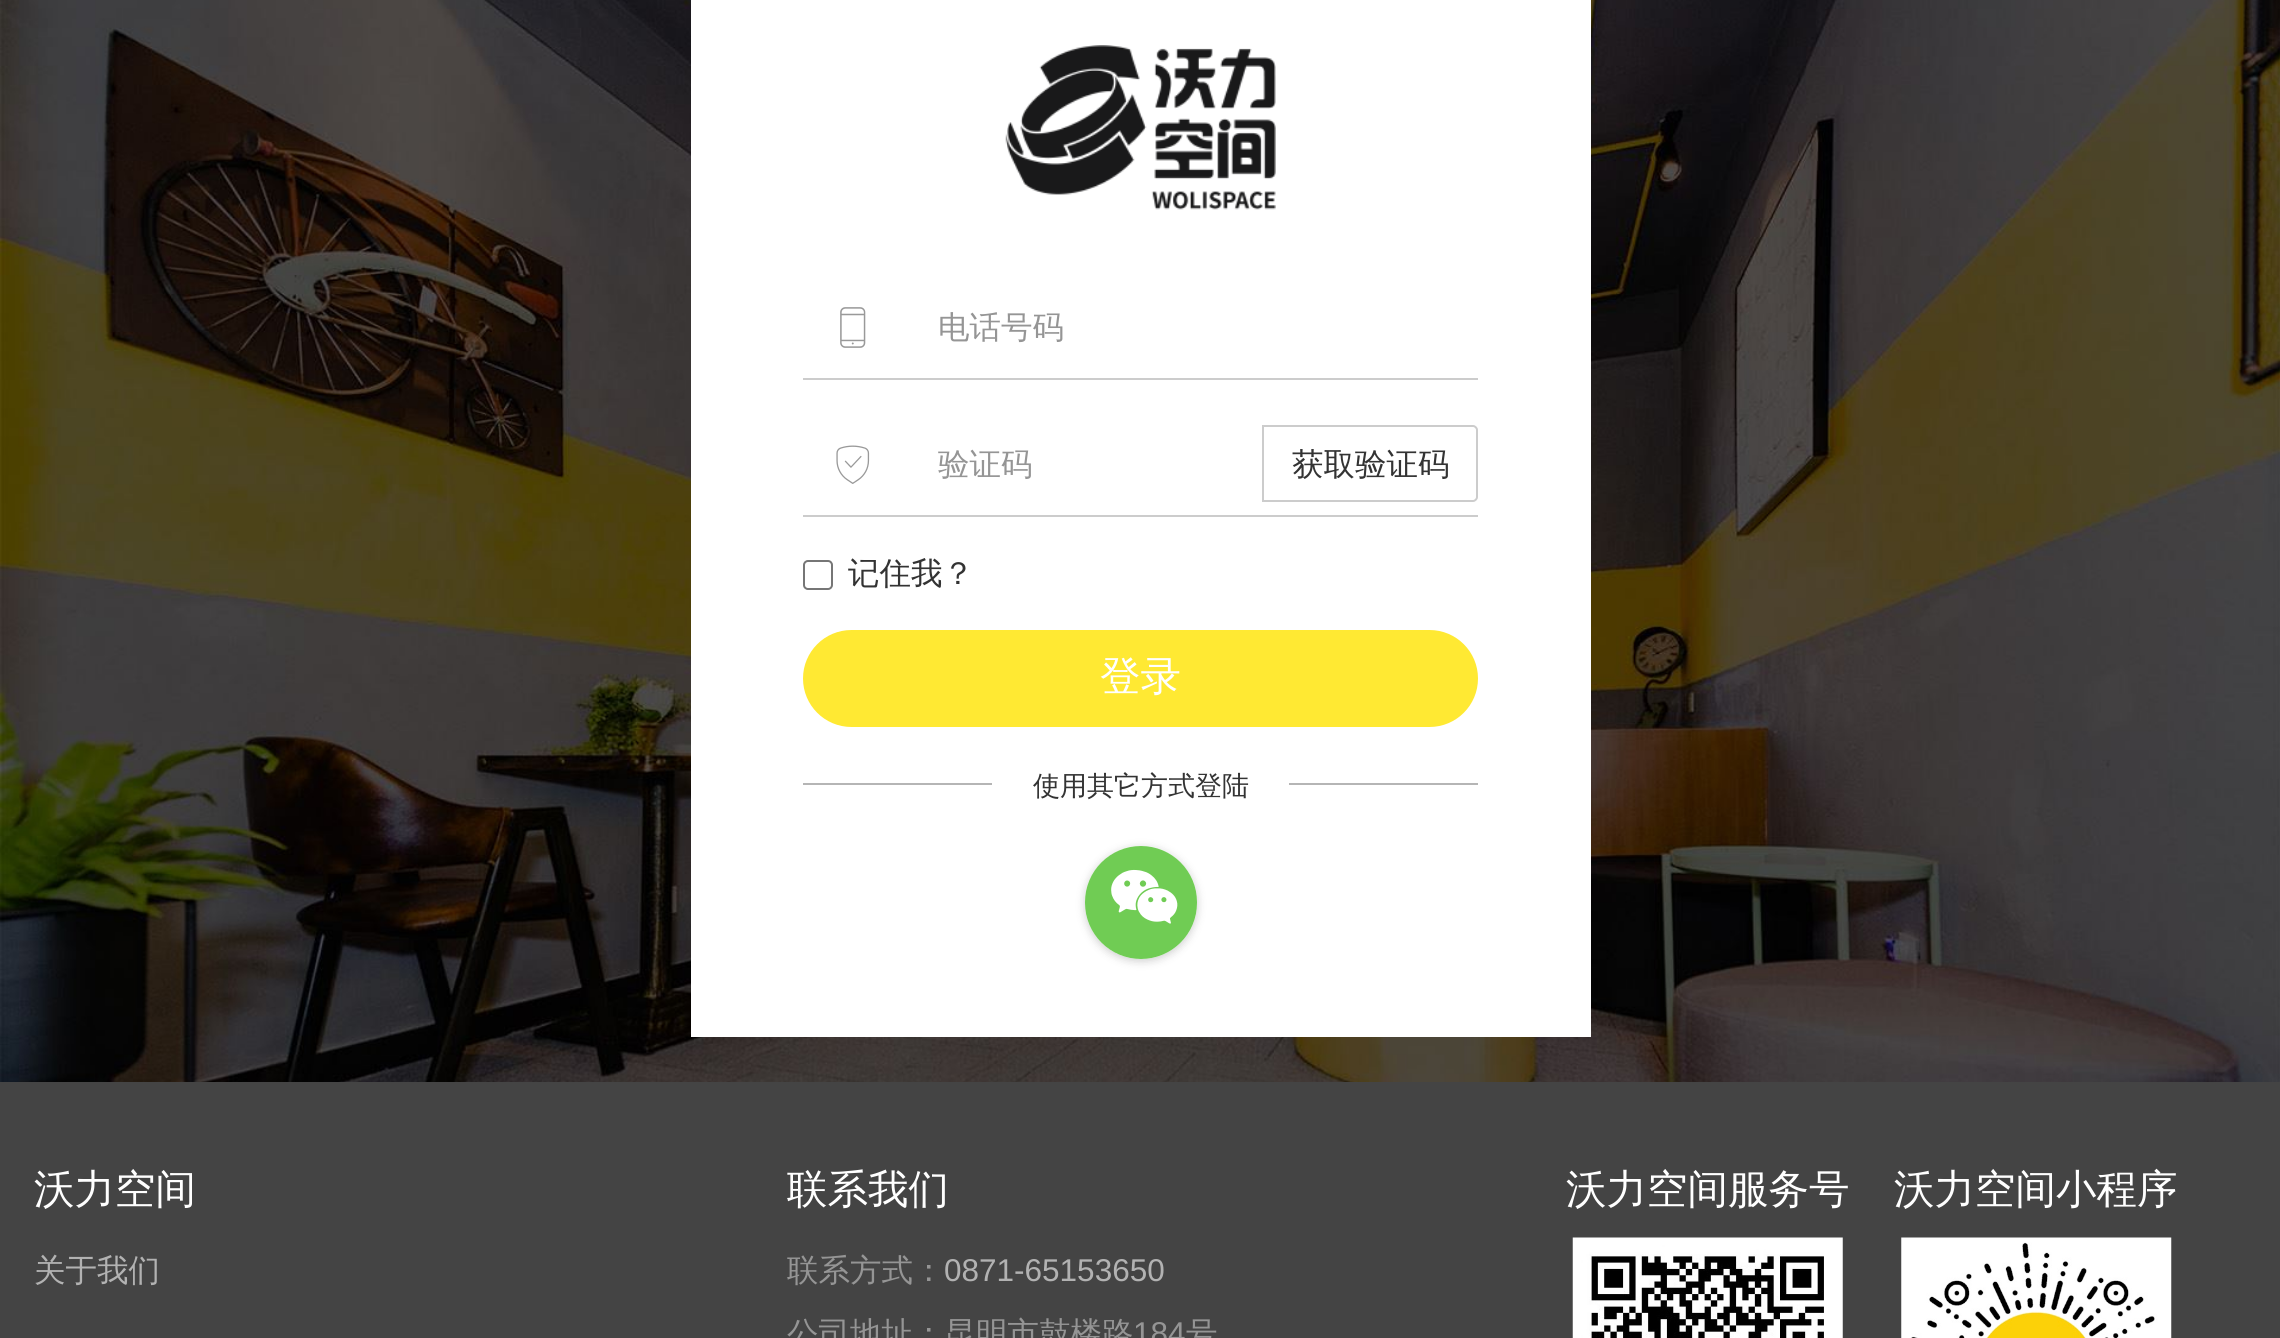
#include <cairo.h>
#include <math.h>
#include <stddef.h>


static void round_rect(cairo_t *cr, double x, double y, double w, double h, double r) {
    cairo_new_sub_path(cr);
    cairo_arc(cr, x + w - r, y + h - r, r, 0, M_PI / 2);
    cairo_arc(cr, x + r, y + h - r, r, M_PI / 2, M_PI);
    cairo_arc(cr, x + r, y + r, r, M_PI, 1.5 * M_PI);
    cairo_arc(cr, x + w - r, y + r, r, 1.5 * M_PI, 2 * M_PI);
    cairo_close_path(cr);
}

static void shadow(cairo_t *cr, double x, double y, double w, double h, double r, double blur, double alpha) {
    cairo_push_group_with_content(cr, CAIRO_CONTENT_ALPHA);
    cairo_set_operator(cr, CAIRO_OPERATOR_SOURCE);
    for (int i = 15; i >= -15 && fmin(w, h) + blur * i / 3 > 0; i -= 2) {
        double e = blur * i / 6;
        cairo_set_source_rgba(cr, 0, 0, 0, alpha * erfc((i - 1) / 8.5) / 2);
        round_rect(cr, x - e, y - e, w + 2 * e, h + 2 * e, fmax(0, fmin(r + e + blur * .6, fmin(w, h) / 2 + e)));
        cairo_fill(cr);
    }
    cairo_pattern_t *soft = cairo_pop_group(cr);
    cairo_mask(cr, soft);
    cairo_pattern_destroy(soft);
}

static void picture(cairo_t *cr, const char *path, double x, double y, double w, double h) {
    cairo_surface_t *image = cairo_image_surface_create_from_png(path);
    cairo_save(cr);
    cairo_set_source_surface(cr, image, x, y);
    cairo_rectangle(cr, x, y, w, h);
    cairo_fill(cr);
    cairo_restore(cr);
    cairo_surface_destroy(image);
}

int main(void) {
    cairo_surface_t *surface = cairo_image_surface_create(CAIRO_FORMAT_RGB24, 2280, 1338);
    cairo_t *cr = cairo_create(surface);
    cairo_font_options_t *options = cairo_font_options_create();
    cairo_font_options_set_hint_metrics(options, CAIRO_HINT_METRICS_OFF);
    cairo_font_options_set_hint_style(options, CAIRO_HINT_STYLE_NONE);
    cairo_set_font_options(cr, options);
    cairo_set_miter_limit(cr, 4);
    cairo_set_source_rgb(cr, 1, 1, 1);
    cairo_paint(cr);
    picture(cr, "img1.png", 0, 0, 2280, 1082);
    cairo_set_source_rgb(cr, 1, 1, 1);
    cairo_rectangle(cr, 691, 0, 900, 1037);
    cairo_fill(cr);
    picture(cr, "img2.png", 1005, 45, 271, 165);
    cairo_set_source_rgb(cr, 0.8, 0.8, 0.8);
    cairo_rectangle(cr, 803, 378, 675, 2);
    cairo_fill(cr);
    picture(cr, "img3.png", 840, 307, 26, 41);
    cairo_select_font_face(cr, "WenQuanYi Zen Hei Medium", CAIRO_FONT_SLANT_NORMAL, CAIRO_FONT_WEIGHT_NORMAL);
    cairo_set_font_size(cr, 31.5);
    cairo_set_source_rgb(cr, 0.584, 0.584, 0.584);
    cairo_move_to(cr, 938, 338);
    cairo_show_text(cr, "电话号码");
    cairo_set_source_rgb(cr, 0.8, 0.8, 0.8);
    cairo_rectangle(cr, 803, 515, 99, 2);
    cairo_fill(cr);
    picture(cr, "img4.png", 836, 445, 34, 39);
    cairo_set_source_rgb(cr, 0.584, 0.584, 0.584);
    cairo_move_to(cr, 938, 475);
    cairo_show_text(cr, "验证码");
    cairo_set_source_rgb(cr, 0.8, 0.8, 0.8);
    cairo_rectangle(cr, 902, 515, 576, 2);
    cairo_fill(cr);
    cairo_new_path(cr);
    cairo_move_to(cr, 1263, 426);
    cairo_line_to(cr, 1473, 426);
    cairo_curve_to(cr, 1475, 426, 1477, 428, 1477, 430);
    cairo_line_to(cr, 1477, 497);
    cairo_curve_to(cr, 1477, 499, 1475, 501, 1473, 501);
    cairo_line_to(cr, 1263, 501);
    cairo_close_path(cr);
    cairo_stroke(cr);
    cairo_set_source_rgb(cr, 0.2, 0.2, 0.2);
    cairo_move_to(cr, 1292, 475);
    cairo_show_text(cr, "获取验证码");
    round_rect(cr, 804, 561, 28, 28, 4);
    cairo_set_source_rgb(cr, 0.463, 0.463, 0.463);
    cairo_stroke(cr);
    cairo_set_source_rgb(cr, 0.2, 0.2, 0.2);
    cairo_move_to(cr, 848, 584);
    cairo_show_text(cr, "记住我？");
    cairo_set_source_rgb(cr, 1, 0.914, 0.2);
    round_rect(cr, 803, 630, 675, 97, 48.5);
    cairo_fill(cr);
    cairo_set_font_size(cr, 40.5);
    cairo_set_source_rgb(cr, 1, 1, 1);
    cairo_move_to(cr, 1100, 690);
    cairo_show_text(cr, "登录");
    cairo_set_source_rgb(cr, 0.71, 0.71, 0.71);
    cairo_rectangle(cr, 803, 783, 189, 2);
    cairo_fill(cr);
    cairo_set_font_size(cr, 27);
    cairo_set_source_rgb(cr, 0.2, 0.2, 0.2);
    cairo_move_to(cr, 1033, 795);
    cairo_show_text(cr, "使用其它方式登陆");
    cairo_set_source_rgb(cr, 0.71, 0.71, 0.71);
    cairo_rectangle(cr, 1289, 783, 189, 2);
    cairo_fill(cr);
    cairo_save(cr);
    cairo_set_fill_rule(cr, CAIRO_FILL_RULE_EVEN_ODD);
    cairo_new_path(cr);
    cairo_move_to(cr, 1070, 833);
    cairo_line_to(cr, 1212, 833);
    cairo_line_to(cr, 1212, 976);
    cairo_line_to(cr, 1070, 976);
    cairo_close_path(cr);
    cairo_move_to(cr, 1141, 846);
    cairo_curve_to(cr, 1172, 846, 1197, 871, 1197, 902);
    cairo_line_to(cr, 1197, 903);
    cairo_curve_to(cr, 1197, 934, 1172, 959, 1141, 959);
    cairo_curve_to(cr, 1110, 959, 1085, 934, 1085, 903);
    cairo_line_to(cr, 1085, 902);
    cairo_curve_to(cr, 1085, 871, 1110, 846, 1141, 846);
    cairo_close_path(cr);
    cairo_clip(cr);
    cairo_set_source_rgb(cr, 0, 0, 0);
    shadow(cr, 1085, 848, 112, 113, 56, 4.5, 0.2);
    cairo_restore(cr);
    cairo_set_source_rgba(cr, 0.298, 0.749, 0.165, 0.8);
    round_rect(cr, 1085, 846, 112, 113, 56);
    cairo_fill(cr);
    picture(cr, "img5.png", 1111, 869, 67, 55);
    cairo_set_source_rgb(cr, 0.267, 0.267, 0.267);
    cairo_rectangle(cr, 0, 1082, 2280, 256);
    cairo_fill(cr);
    cairo_set_font_size(cr, 40.5);
    cairo_set_source_rgb(cr, 1, 1, 1);
    cairo_move_to(cr, 34, 1203);
    cairo_show_text(cr, "沃力空间");
    cairo_set_font_size(cr, 31.5);
    cairo_set_source_rgb(cr, 0.698, 0.698, 0.698);
    cairo_move_to(cr, 34, 1281);
    cairo_show_text(cr, "关于我们");
    cairo_set_font_size(cr, 40.5);
    cairo_set_source_rgb(cr, 1, 1, 1);
    cairo_move_to(cr, 787, 1203);
    cairo_show_text(cr, "联系我们");
    cairo_set_font_size(cr, 31.5);
    cairo_set_source_rgb(cr, 0.584, 0.584, 0.584);
    cairo_move_to(cr, 787, 1281);
    cairo_show_text(cr, "联系方式：");
    cairo_select_font_face(cr, "Liberation Sans", CAIRO_FONT_SLANT_NORMAL, CAIRO_FONT_WEIGHT_NORMAL);
    cairo_set_source_rgb(cr, 0.698, 0.698, 0.698);
    cairo_move_to(cr, 944, 1281);
    cairo_show_text(cr, "0871-65153650");
    cairo_select_font_face(cr, "WenQuanYi Zen Hei Medium", CAIRO_FONT_SLANT_NORMAL, CAIRO_FONT_WEIGHT_NORMAL);
    cairo_set_source_rgb(cr, 0.584, 0.584, 0.584);
    cairo_move_to(cr, 787, 1344);
    cairo_show_text(cr, "公司地址：昆明市鼓楼路");
    cairo_select_font_face(cr, "Liberation Sans", CAIRO_FONT_SLANT_NORMAL, CAIRO_FONT_WEIGHT_NORMAL);
    cairo_move_to(cr, 1133, 1344);
    cairo_show_text(cr, "184");
    cairo_select_font_face(cr, "WenQuanYi Zen Hei Medium", CAIRO_FONT_SLANT_NORMAL, CAIRO_FONT_WEIGHT_NORMAL);
    cairo_move_to(cr, 1186, 1344);
    cairo_show_text(cr, "号");
    cairo_set_font_size(cr, 40.5);
    cairo_set_source_rgb(cr, 1, 1, 1);
    cairo_move_to(cr, 1566, 1203);
    cairo_show_text(cr, "沃力空间服务号");
    picture(cr, "img6.png", 1572, 1237, 271, 101);
    cairo_move_to(cr, 1894, 1203);
    cairo_show_text(cr, "沃力空间小程序");
    picture(cr, "img7.png", 1901, 1237, 271, 101);
    cairo_surface_write_to_png(surface, "page.png");
    cairo_font_options_destroy(options);
    cairo_destroy(cr);
    cairo_surface_destroy(surface);
    return 0;
}
